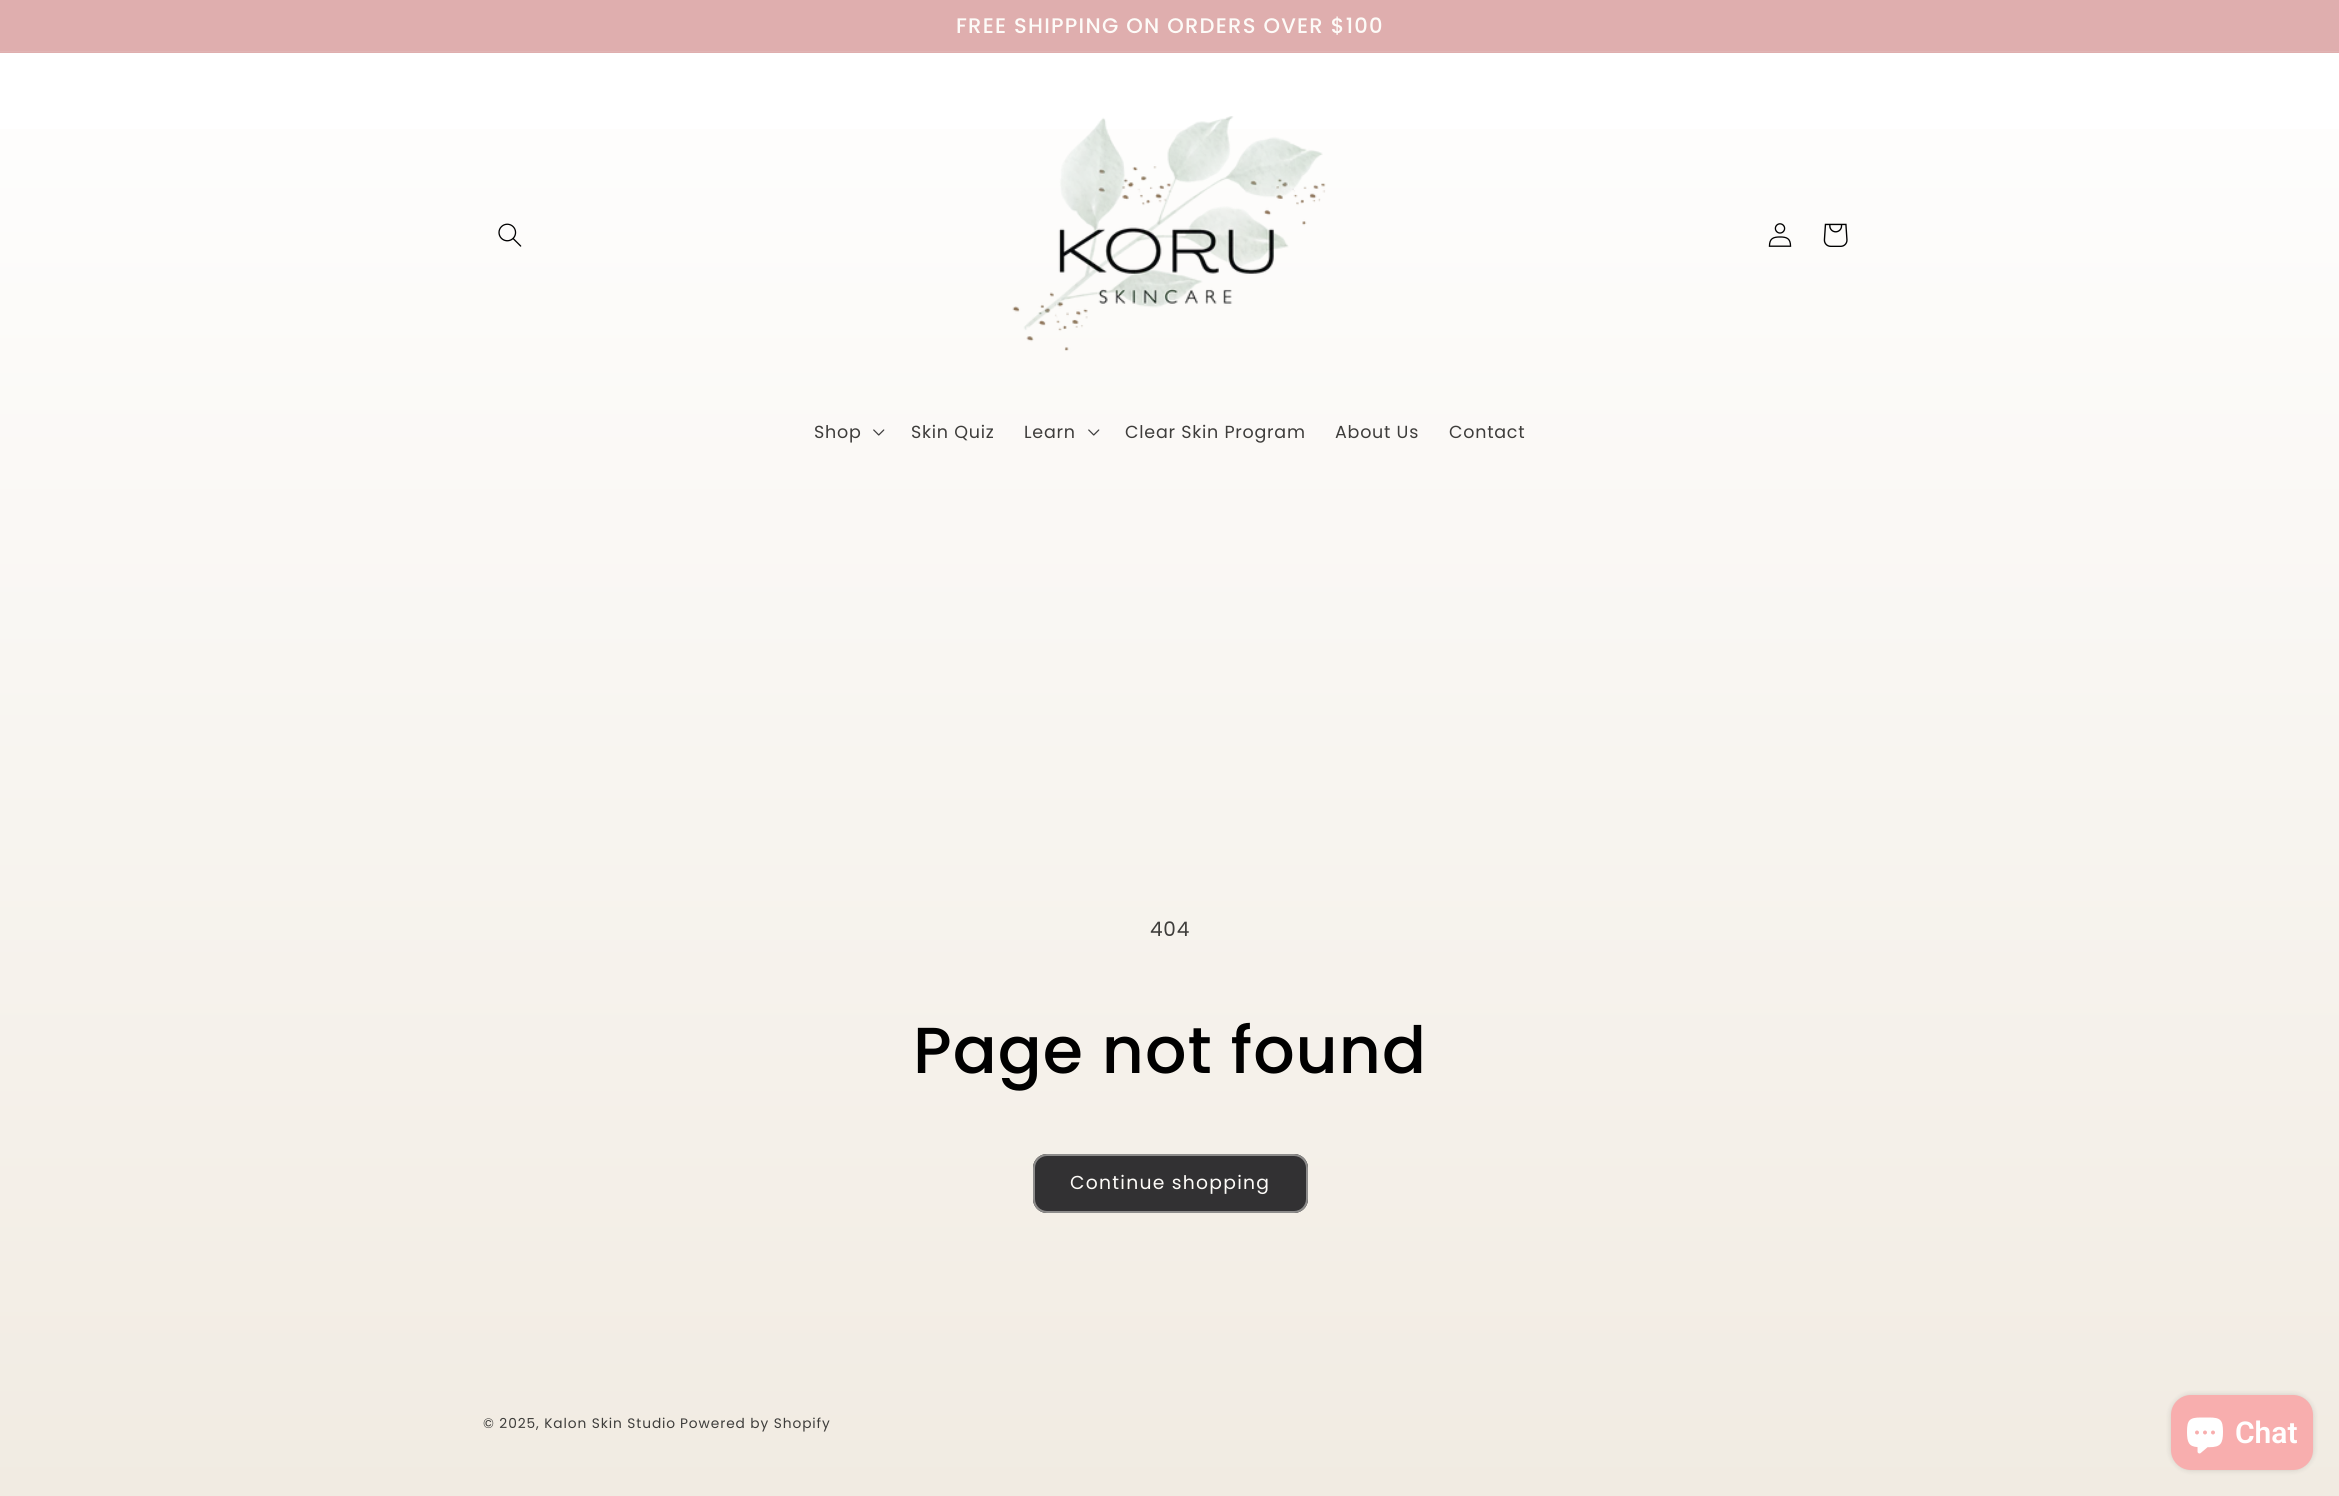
#include <cairo.h>
#include <math.h>
#include <stddef.h>


static void spaced_text(cairo_t *cr, double x, double y, const char *s, double letter, double word) {
    cairo_move_to(cr, x, y);
    while (*s) {
        char ch[5] = {0};
        int n = 0;
        do ch[n++] = *s++; while ((*s & 0xC0) == 0x80);
        cairo_show_text(cr, ch);
        cairo_rel_move_to(cr, letter + word * (*ch == ' '), 0);
    }
}

static void round_rect(cairo_t *cr, double x, double y, double w, double h, double r) {
    cairo_new_sub_path(cr);
    cairo_arc(cr, x + w - r, y + h - r, r, 0, M_PI / 2);
    cairo_arc(cr, x + r, y + h - r, r, M_PI / 2, M_PI);
    cairo_arc(cr, x + r, y + r, r, M_PI, 1.5 * M_PI);
    cairo_arc(cr, x + w - r, y + r, r, 1.5 * M_PI, 2 * M_PI);
    cairo_close_path(cr);
}

static void shadow(cairo_t *cr, double x, double y, double w, double h, double r, double blur, double alpha) {
    cairo_push_group_with_content(cr, CAIRO_CONTENT_ALPHA);
    cairo_set_operator(cr, CAIRO_OPERATOR_SOURCE);
    for (int i = 15; i >= -15 && fmin(w, h) + blur * i / 3 > 0; i -= 2) {
        double e = blur * i / 6;
        cairo_set_source_rgba(cr, 0, 0, 0, alpha * erfc((i - 1) / 8.5) / 2);
        round_rect(cr, x - e, y - e, w + 2 * e, h + 2 * e, fmax(0, fmin(r + e + blur * .6, fmin(w, h) / 2 + e)));
        cairo_fill(cr);
    }
    cairo_pattern_t *soft = cairo_pop_group(cr);
    cairo_mask(cr, soft);
    cairo_pattern_destroy(soft);
}

static void picture(cairo_t *cr, const char *path, double x, double y, double w, double h) {
    cairo_surface_t *image = cairo_image_surface_create_from_png(path);
    cairo_save(cr);
    cairo_set_source_surface(cr, image, x, y);
    cairo_rectangle(cr, x, y, w, h);
    cairo_fill(cr);
    cairo_restore(cr);
    cairo_surface_destroy(image);
}

int main(void) {
    cairo_surface_t *surface = cairo_image_surface_create(CAIRO_FORMAT_RGB24, 2339, 1496);
    cairo_t *cr = cairo_create(surface);
    cairo_font_options_t *options = cairo_font_options_create();
    cairo_font_options_set_hint_metrics(options, CAIRO_HINT_METRICS_OFF);
    cairo_font_options_set_hint_style(options, CAIRO_HINT_STYLE_NONE);
    cairo_set_font_options(cr, options);
    cairo_set_miter_limit(cr, 4);
    cairo_pattern_t *gradient;
    cairo_set_source_rgb(cr, 1, 1, 1);
    cairo_paint(cr);
    gradient = cairo_pattern_create_linear(1170, 0, 1170, 1496);
    cairo_pattern_add_color_stop_rgba(gradient, 0, 1, 1, 1, 1);
    cairo_pattern_add_color_stop_rgba(gradient, 1, 0.945, 0.922, 0.886, 1);
    cairo_set_source(cr, gradient);
    cairo_pattern_destroy(gradient);
    cairo_rectangle(cr, 0, 129, 2339, 1367);
    cairo_fill(cr);
    cairo_set_source_rgb(cr, 0.875, 0.682, 0.682);
    cairo_rectangle(cr, 0, 0, 2339, 53);
    cairo_fill(cr);
    cairo_set_source_rgb(cr, 0.882, 0.706, 0.706);
    cairo_rectangle(cr, 0, 51, 2339, 1);
    cairo_fill(cr);
    cairo_select_font_face(cr, "Poppins Medium", CAIRO_FONT_SLANT_NORMAL, CAIRO_FONT_WEIGHT_NORMAL);
    cairo_set_font_size(cr, 21.1);
    cairo_set_source_rgb(cr, 0.992, 0.984, 0.969);
    spaced_text(cr, 956, 33, "FREE SHIPPING ON ORDERS OVER $100", 1.25, 0);
    picture(cr, "img1.png", 498, 223, 24, 24);
    picture(cr, "img2.png", 1012, 116, 314, 235);
    picture(cr, "img3.png", 1768, 223, 24, 24);
    picture(cr, "img4.png", 1823, 223, 25, 24);
    cairo_select_font_face(cr, "Poppins", CAIRO_FONT_SLANT_NORMAL, CAIRO_FONT_WEIGHT_NORMAL);
    cairo_set_font_size(cr, 17.5);
    cairo_set_source_rgb(cr, 0.243, 0.239, 0.231);
    spaced_text(cr, 814, 438, "Shop", 0.75, 0);
    picture(cr, "img5.png", 873, 429, 12, 7);
    spaced_text(cr, 911, 438, "Skin Quiz", 0.75, 0);
    spaced_text(cr, 1024, 438, "Learn", 0.75, 0);
    picture(cr, "img5.png", 1088, 429, 12, 7);
    spaced_text(cr, 1125, 438, "Clear Skin Program", 0.75, 0);
    spaced_text(cr, 1335, 438, "About Us", 0.75, 0);
    spaced_text(cr, 1449, 438, "Contact", 0.75, 0);
    cairo_set_font_size(cr, 20);
    spaced_text(cr, 1150, 936, "404", 0.75, 0);
    cairo_select_font_face(cr, "Poppins Medium", CAIRO_FONT_SLANT_NORMAL, CAIRO_FONT_WEIGHT_NORMAL);
    cairo_set_font_size(cr, 65);
    cairo_set_source_rgb(cr, 0, 0, 0);
    spaced_text(cr, 913, 1073, "Page not found", 1, 0);
    cairo_set_source_rgb(cr, 0.196, 0.192, 0.2);
    round_rect(cr, 1033, 1154, 275, 59, 14);
    cairo_fill(cr);
    round_rect(cr, 1033.5, 1154.5, 274, 58, 13.5);
    cairo_set_line_width(cr, 1);
    cairo_stroke(cr);
    round_rect(cr, 1034, 1155, 273, 57, 13);
    cairo_set_source_rgba(cr, 0.992, 0.984, 0.969, 0.45);
    cairo_set_line_width(cr, 2);
    cairo_stroke(cr);
    cairo_select_font_face(cr, "Poppins", CAIRO_FONT_SLANT_NORMAL, CAIRO_FONT_WEIGHT_NORMAL);
    cairo_set_font_size(cr, 18.75);
    cairo_set_source_rgb(cr, 0.992, 0.984, 0.969);
    spaced_text(cr, 1070, 1189, "Continue shopping", 1.25, 0);
    cairo_set_font_size(cr, 13.75);
    cairo_set_source_rgb(cr, 0.243, 0.239, 0.231);
    spaced_text(cr, 483, 1428, "© 2025, Kalon Skin Studio", 0.9, 0);
    spaced_text(cr, 680, 1428, "Powered by Shopify", 0.9, 0);
    cairo_set_source_rgb(cr, 0, 0, 0);
    shadow(cr, 2171, 1395, 142, 75, 20, 3, 0.15);
    cairo_set_source_rgb(cr, 0.969, 0.682, 0.682);
    round_rect(cr, 2171, 1395, 142, 75, 20);
    cairo_fill(cr);
    picture(cr, "img6.png", 2187, 1417, 36, 37);
    cairo_select_font_face(cr, "Roboto SemiBold", CAIRO_FONT_SLANT_NORMAL, CAIRO_FONT_WEIGHT_NORMAL);
    cairo_set_font_size(cr, 30);
    cairo_set_source_rgb(cr, 1, 1, 1);
    cairo_move_to(cr, 2235, 1443);
    cairo_show_text(cr, "Chat");
    cairo_surface_write_to_png(surface, "page.png");
    cairo_font_options_destroy(options);
    cairo_destroy(cr);
    cairo_surface_destroy(surface);
    return 0;
}
